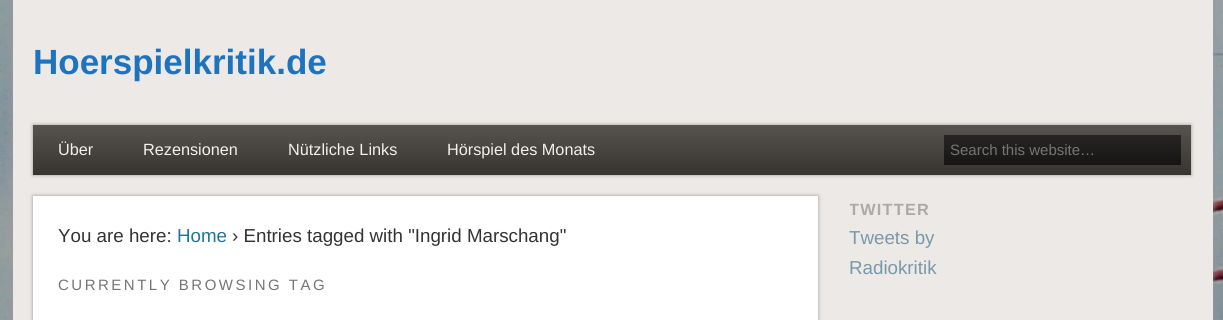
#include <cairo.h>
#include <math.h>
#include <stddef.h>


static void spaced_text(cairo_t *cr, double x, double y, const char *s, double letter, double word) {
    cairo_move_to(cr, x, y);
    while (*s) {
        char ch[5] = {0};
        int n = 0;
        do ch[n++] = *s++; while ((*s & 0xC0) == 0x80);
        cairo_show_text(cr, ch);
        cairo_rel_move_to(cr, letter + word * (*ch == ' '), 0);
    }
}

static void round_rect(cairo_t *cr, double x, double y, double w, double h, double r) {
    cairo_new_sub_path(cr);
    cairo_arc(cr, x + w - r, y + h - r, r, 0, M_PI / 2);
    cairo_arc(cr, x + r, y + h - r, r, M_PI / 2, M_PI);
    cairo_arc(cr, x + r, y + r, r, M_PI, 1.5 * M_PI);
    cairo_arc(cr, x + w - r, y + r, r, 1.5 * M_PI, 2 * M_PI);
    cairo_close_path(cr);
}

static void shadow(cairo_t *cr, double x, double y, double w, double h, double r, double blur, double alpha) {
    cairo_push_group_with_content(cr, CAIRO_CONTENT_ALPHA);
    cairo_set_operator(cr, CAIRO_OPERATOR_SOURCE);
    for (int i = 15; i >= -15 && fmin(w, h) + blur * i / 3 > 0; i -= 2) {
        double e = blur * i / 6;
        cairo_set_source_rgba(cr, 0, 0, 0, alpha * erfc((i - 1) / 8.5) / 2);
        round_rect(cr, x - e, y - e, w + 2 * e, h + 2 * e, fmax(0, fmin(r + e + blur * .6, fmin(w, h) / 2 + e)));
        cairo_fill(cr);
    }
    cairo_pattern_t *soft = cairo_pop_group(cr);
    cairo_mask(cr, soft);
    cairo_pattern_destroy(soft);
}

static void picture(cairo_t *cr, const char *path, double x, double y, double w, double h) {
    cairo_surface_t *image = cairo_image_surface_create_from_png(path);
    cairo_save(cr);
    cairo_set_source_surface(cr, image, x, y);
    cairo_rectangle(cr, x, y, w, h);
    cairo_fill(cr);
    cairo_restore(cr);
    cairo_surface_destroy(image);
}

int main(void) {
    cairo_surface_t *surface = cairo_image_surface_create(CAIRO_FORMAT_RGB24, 1223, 320);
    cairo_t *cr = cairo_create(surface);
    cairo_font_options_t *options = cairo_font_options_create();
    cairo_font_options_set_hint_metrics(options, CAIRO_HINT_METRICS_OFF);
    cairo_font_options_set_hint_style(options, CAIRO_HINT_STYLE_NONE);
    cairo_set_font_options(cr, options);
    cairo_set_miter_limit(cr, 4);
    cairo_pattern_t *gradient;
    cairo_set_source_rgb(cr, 1, 1, 1);
    cairo_paint(cr);
    picture(cr, "img1.png", 0, 0, 1223, 320);
    cairo_set_source_rgb(cr, 0.6, 0.6, 0.6);
    shadow(cr, 13, 0, 1200, 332, 0, 4, 1);
    cairo_set_source_rgb(cr, 0.925, 0.914, 0.902);
    cairo_rectangle(cr, 13, 0, 1200, 320);
    cairo_fill(cr);
    cairo_select_font_face(cr, "Liberation Sans", CAIRO_FONT_SLANT_NORMAL, CAIRO_FONT_WEIGHT_BOLD);
    cairo_set_font_size(cr, 35);
    cairo_set_source_rgb(cr, 0.118, 0.451, 0.745);
    cairo_move_to(cr, 33, 74);
    cairo_show_text(cr, "Hoerspielkritik.de");
    cairo_set_source_rgb(cr, 0.6, 0.6, 0.6);
    shadow(cr, 33, 125, 1158, 50, 0, 2, 1);
    gradient = cairo_pattern_create_linear(612, 125, 612, 225);
    cairo_pattern_add_color_stop_rgba(gradient, 0, 0.341, 0.329, 0.314, 1);
    cairo_pattern_add_color_stop_rgba(gradient, 0.5, 0.216, 0.204, 0.188, 1);
    cairo_pattern_add_color_stop_rgba(gradient, 0.5, 0.341, 0.329, 0.314, 1);
    cairo_pattern_add_color_stop_rgba(gradient, 1, 0.216, 0.204, 0.188, 1);
    cairo_set_source(cr, gradient);
    cairo_pattern_destroy(gradient);
    cairo_rectangle(cr, 33, 125, 1158, 50);
    cairo_fill(cr);
    cairo_select_font_face(cr, "Liberation Sans", CAIRO_FONT_SLANT_NORMAL, CAIRO_FONT_WEIGHT_NORMAL);
    cairo_set_font_size(cr, 16.25);
    cairo_set_source_rgb(cr, 0.941, 0.941, 0.941);
    cairo_move_to(cr, 58, 155);
    cairo_show_text(cr, "Über");
    cairo_move_to(cr, 143, 155);
    cairo_show_text(cr, "Rezensionen");
    cairo_move_to(cr, 288, 155);
    cairo_show_text(cr, "Nützliche Links");
    cairo_move_to(cr, 447, 155);
    cairo_show_text(cr, "Hörspiel des Monats");
    gradient = cairo_pattern_create_linear(1063, 135, 1063, 165);
    cairo_pattern_add_color_stop_rgba(gradient, 0, 0.153, 0.145, 0.137, 1);
    cairo_pattern_add_color_stop_rgba(gradient, 1, 0.09, 0.082, 0.075, 1);
    cairo_set_source(cr, gradient);
    cairo_pattern_destroy(gradient);
    cairo_rectangle(cr, 944, 135, 237, 30);
    cairo_fill(cr);
    cairo_set_font_size(cr, 15);
    cairo_set_source_rgb(cr, 0.459, 0.459, 0.459);
    cairo_move_to(cr, 950, 155);
    cairo_show_text(cr, "Search this website…");
    cairo_set_source_rgb(cr, 0.6, 0.6, 0.6);
    shadow(cr, 33, 196, 785, 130, 0, 2, 1);
    cairo_set_source_rgb(cr, 1, 1, 1);
    cairo_rectangle(cr, 33, 196, 785, 124);
    cairo_fill(cr);
    cairo_set_font_size(cr, 18.75);
    cairo_set_source_rgb(cr, 0.2, 0.2, 0.2);
    cairo_move_to(cr, 58, 242);
    cairo_show_text(cr, "You are here:");
    cairo_set_source_rgb(cr, 0.129, 0.459, 0.608);
    cairo_move_to(cr, 177, 242);
    cairo_show_text(cr, "Home");
    cairo_set_source_rgb(cr, 0.2, 0.2, 0.2);
    cairo_move_to(cr, 232, 242);
    cairo_show_text(cr, "› Entries tagged with \"Ingrid Marschang\"");
    cairo_set_font_size(cr, 15);
    cairo_set_source_rgb(cr, 0.459, 0.459, 0.459);
    spaced_text(cr, 58, 290, "CURRENTLY BROWSING TAG", 2.5, 0);
    cairo_save(cr);
    cairo_rectangle(cr, 850, 196, 169, 88);
    cairo_clip(cr);
    cairo_select_font_face(cr, "Liberation Sans", CAIRO_FONT_SLANT_NORMAL, CAIRO_FONT_WEIGHT_BOLD);
    cairo_set_font_size(cr, 16.25);
    cairo_set_source_rgb(cr, 0.667, 0.667, 0.667);
    spaced_text(cr, 849, 215, "TWITTER", 1.25, 0);
    cairo_restore(cr);
    cairo_set_font_size(cr, 18.75);
    cairo_set_source_rgb(cr, 0.467, 0.6, 0.667);
    cairo_move_to(cr, 849, 244);
    cairo_show_text(cr, "Tweets by");
    cairo_move_to(cr, 849, 274);
    cairo_show_text(cr, "Radiokritik");
    cairo_surface_write_to_png(surface, "page.png");
    cairo_font_options_destroy(options);
    cairo_destroy(cr);
    cairo_surface_destroy(surface);
    return 0;
}
